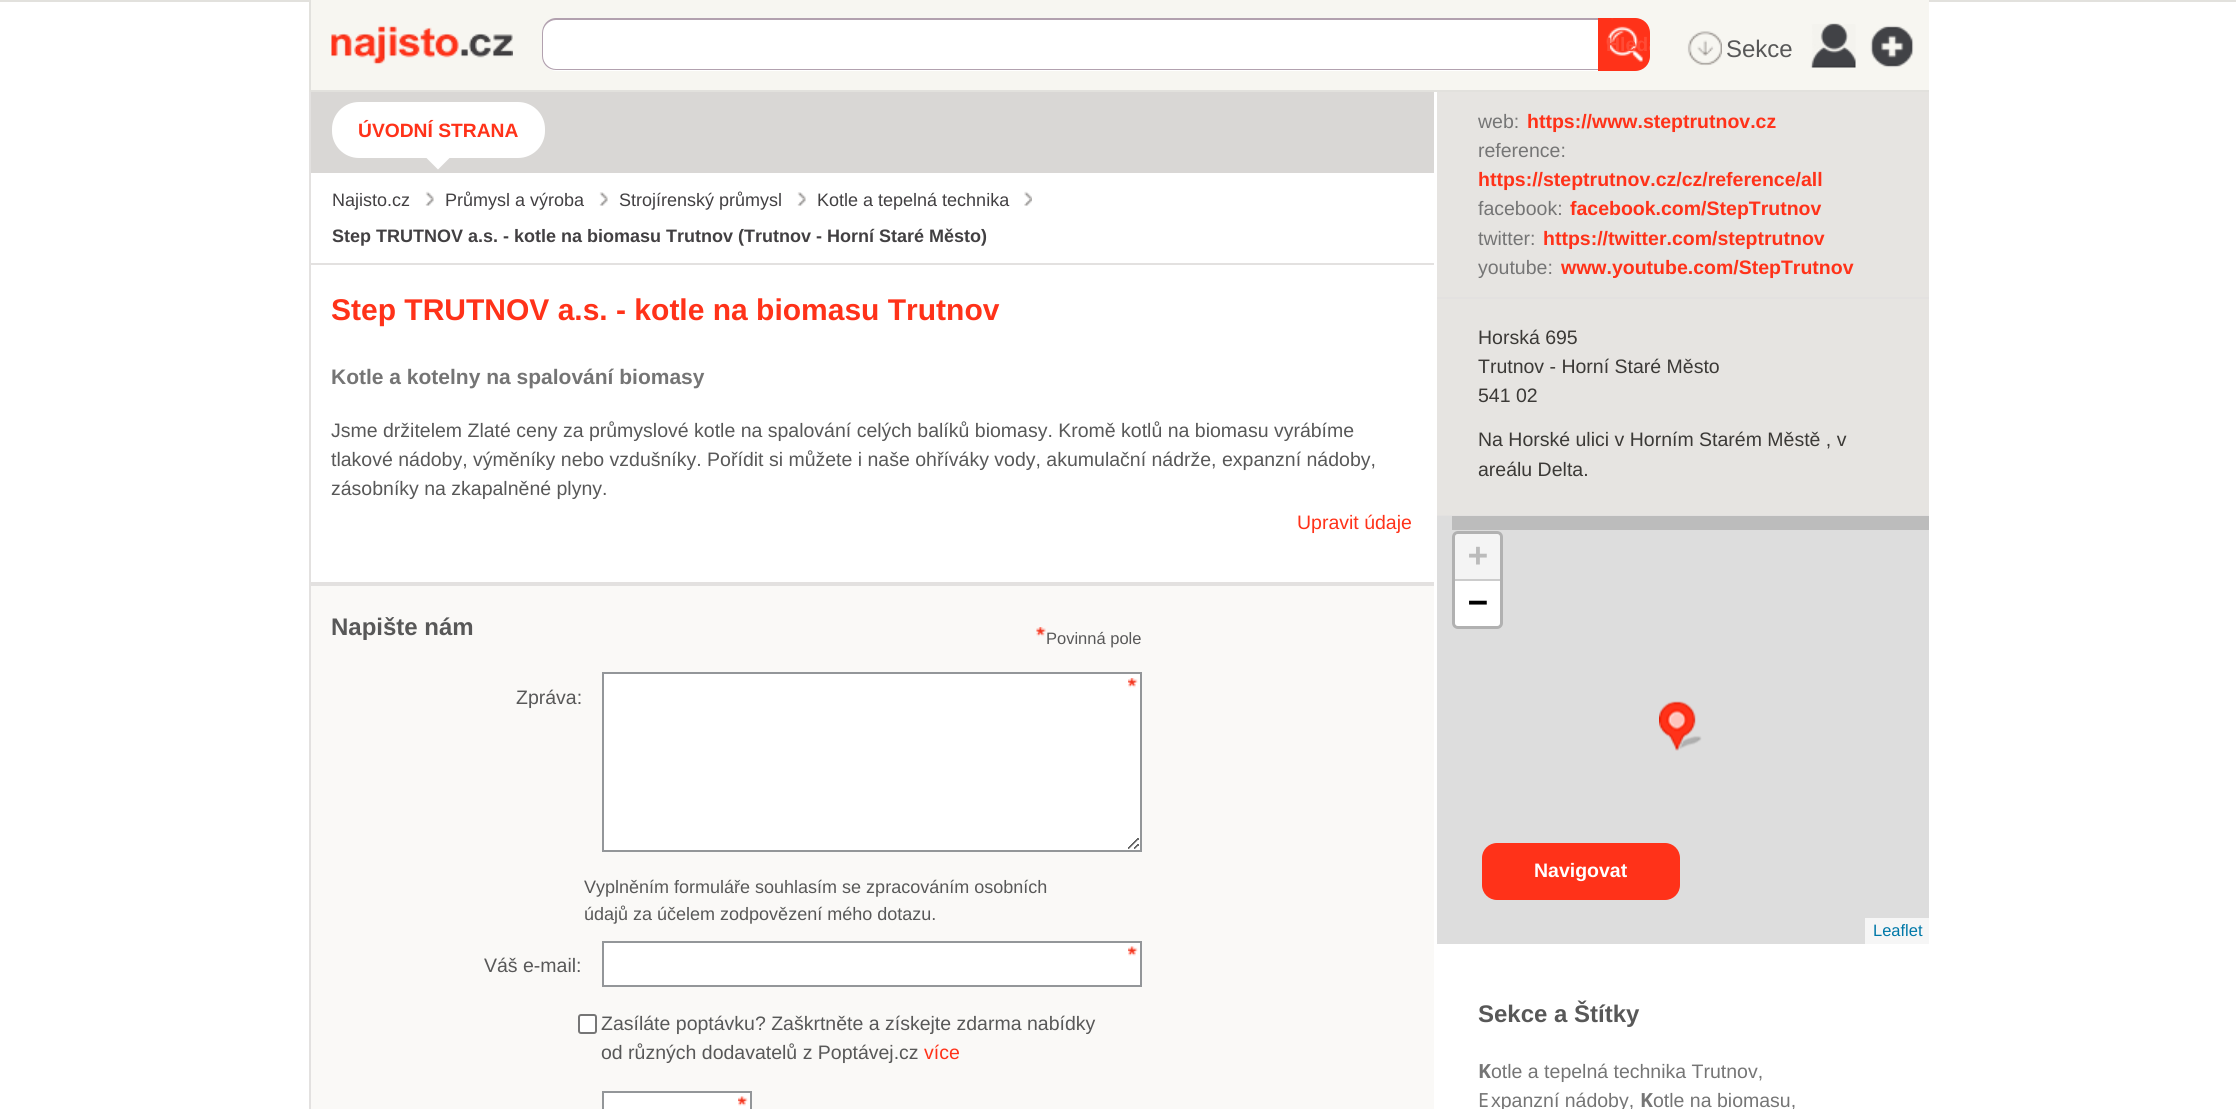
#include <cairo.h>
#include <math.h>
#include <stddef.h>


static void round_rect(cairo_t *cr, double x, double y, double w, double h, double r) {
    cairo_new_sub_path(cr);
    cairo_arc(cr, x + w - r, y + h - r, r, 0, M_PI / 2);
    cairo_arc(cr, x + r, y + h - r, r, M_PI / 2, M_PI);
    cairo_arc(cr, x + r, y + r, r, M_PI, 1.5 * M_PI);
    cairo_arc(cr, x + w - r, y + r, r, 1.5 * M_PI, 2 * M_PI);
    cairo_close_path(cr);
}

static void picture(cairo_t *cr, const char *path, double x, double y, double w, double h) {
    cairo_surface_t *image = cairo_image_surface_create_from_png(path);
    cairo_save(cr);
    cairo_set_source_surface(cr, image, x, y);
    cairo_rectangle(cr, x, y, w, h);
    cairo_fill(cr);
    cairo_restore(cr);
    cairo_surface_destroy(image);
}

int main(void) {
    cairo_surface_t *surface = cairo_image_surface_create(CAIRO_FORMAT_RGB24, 2236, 1109);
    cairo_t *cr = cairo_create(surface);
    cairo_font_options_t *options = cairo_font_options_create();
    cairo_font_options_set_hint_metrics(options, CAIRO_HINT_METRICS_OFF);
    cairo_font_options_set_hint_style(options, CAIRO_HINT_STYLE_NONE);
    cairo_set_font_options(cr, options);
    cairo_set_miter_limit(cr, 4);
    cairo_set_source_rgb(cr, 1, 1, 1);
    cairo_paint(cr);
    cairo_set_source_rgb(cr, 0.886, 0.882, 0.867);
    cairo_rectangle(cr, 0, 0, 2236, 2);
    cairo_fill(cr);
    cairo_set_source_rgb(cr, 0.965, 0.961, 0.945);
    cairo_rectangle(cr, 311, 0, 1618, 90);
    cairo_fill(cr);
    cairo_set_source_rgb(cr, 0.886, 0.882, 0.867);
    cairo_rectangle(cr, 309, 90, 1620, 2);
    cairo_fill(cr);
    cairo_rectangle(cr, 309, 0, 2, 92);
    cairo_fill(cr);
    picture(cr, "img1.png", 331, 25, 182, 40);
    cairo_set_source_rgb(cr, 1, 1, 1);
    cairo_new_path(cr);
    cairo_move_to(cr, 557, 18);
    cairo_line_to(cr, 1598, 18);
    cairo_line_to(cr, 1598, 71);
    cairo_line_to(cr, 557, 71);
    cairo_curve_to(cr, 548.5, 71, 542, 64.5, 542, 56);
    cairo_line_to(cr, 542, 33);
    cairo_curve_to(cr, 542, 24.5, 548.5, 18, 557, 18);
    cairo_close_path(cr);
    cairo_fill(cr);
    cairo_set_source_rgb(cr, 0.698, 0.631, 0.686);
    cairo_set_fill_rule(cr, CAIRO_FILL_RULE_EVEN_ODD);
    cairo_new_path(cr);
    cairo_move_to(cr, 556, 18);
    cairo_line_to(cr, 1598, 18);
    cairo_line_to(cr, 1598, 70);
    cairo_line_to(cr, 556, 70);
    cairo_curve_to(cr, 548, 70, 542, 64, 542, 56);
    cairo_line_to(cr, 542, 33);
    cairo_curve_to(cr, 542, 25, 548, 18, 556, 18);
    cairo_close_path(cr);
    cairo_move_to(cr, 556, 20);
    cairo_line_to(cr, 1598, 20);
    cairo_line_to(cr, 1598, 69);
    cairo_line_to(cr, 556, 69);
    cairo_curve_to(cr, 549, 69, 543, 63, 543, 56);
    cairo_line_to(cr, 543, 33);
    cairo_curve_to(cr, 543, 26, 549, 20, 556, 20);
    cairo_close_path(cr);
    cairo_fill(cr);
    cairo_set_source_rgb(cr, 1, 0.196, 0.098);
    cairo_new_path(cr);
    cairo_move_to(cr, 1598, 18);
    cairo_line_to(cr, 1635, 18);
    cairo_curve_to(cr, 1643.5, 18, 1650, 24.5, 1650, 33);
    cairo_line_to(cr, 1650, 56);
    cairo_curve_to(cr, 1650, 64.5, 1643.5, 71, 1635, 71);
    cairo_line_to(cr, 1598, 71);
    cairo_close_path(cr);
    cairo_fill(cr);
    picture(cr, "img2.png", 1606, 18, 37, 44);
    cairo_save(cr);
    cairo_set_fill_rule(cr, CAIRO_FILL_RULE_WINDING);
    cairo_new_path(cr);
    cairo_move_to(cr, 1598, 18);
    cairo_line_to(cr, 1635, 18);
    cairo_curve_to(cr, 1643.5, 18, 1650, 24.5, 1650, 33);
    cairo_line_to(cr, 1650, 56);
    cairo_curve_to(cr, 1650, 64.5, 1643.5, 71, 1635, 71);
    cairo_line_to(cr, 1598, 71);
    cairo_close_path(cr);
    cairo_clip(cr);
    cairo_select_font_face(cr, "Liberation Sans", CAIRO_FONT_SLANT_NORMAL, CAIRO_FONT_WEIGHT_BOLD);
    cairo_set_font_size(cr, 19.5);
    cairo_set_source_rgb(cr, 1, 0.294, 0.208);
    cairo_move_to(cr, 1606, 51);
    cairo_show_text(cr, "Hleda");
    cairo_restore(cr);
    picture(cr, "img3.png", 1687, 31, 35, 35);
    cairo_select_font_face(cr, "Liberation Sans", CAIRO_FONT_SLANT_NORMAL, CAIRO_FONT_WEIGHT_NORMAL);
    cairo_set_font_size(cr, 24);
    cairo_set_source_rgb(cr, 0.345, 0.345, 0.345);
    cairo_move_to(cr, 1726, 57);
    cairo_show_text(cr, "Sekce");
    picture(cr, "img4.png", 1810, 23, 46, 45);
    picture(cr, "img5.png", 1870, 25, 44, 43);
    cairo_set_source_rgb(cr, 0.89, 0.882, 0.878);
    cairo_rectangle(cr, 309, 92, 2, 1017);
    cairo_fill(cr);
    cairo_set_source_rgb(cr, 0.851, 0.843, 0.835);
    cairo_rectangle(cr, 311, 92, 1123, 81);
    cairo_fill(cr);
    cairo_set_source_rgb(cr, 1, 1, 1);
    round_rect(cr, 332, 102, 213, 56, 27);
    cairo_fill(cr);
    cairo_select_font_face(cr, "Liberation Sans", CAIRO_FONT_SLANT_NORMAL, CAIRO_FONT_WEIGHT_BOLD);
    cairo_set_font_size(cr, 19.25);
    cairo_set_source_rgb(cr, 1, 0.196, 0.098);
    cairo_move_to(cr, 358, 137);
    cairo_show_text(cr, "ÚVODNÍ STRANA");
    cairo_set_source_rgb(cr, 1, 1, 1);
    cairo_set_fill_rule(cr, CAIRO_FILL_RULE_WINDING);
    cairo_new_path(cr);
    cairo_move_to(cr, 423, 154.5);
    cairo_line_to(cr, 453, 154.5);
    cairo_line_to(cr, 438, 169.5);
    cairo_close_path(cr);
    cairo_fill(cr);
    cairo_set_source_rgb(cr, 0.89, 0.882, 0.878);
    cairo_rectangle(cr, 311, 263, 1123, 2);
    cairo_fill(cr);
    picture(cr, "img6.png", 425, 191, 9, 15);
    cairo_select_font_face(cr, "Liberation Sans", CAIRO_FONT_SLANT_NORMAL, CAIRO_FONT_WEIGHT_NORMAL);
    cairo_set_font_size(cr, 18);
    cairo_set_source_rgb(cr, 0.259, 0.251, 0.259);
    cairo_move_to(cr, 332, 206);
    cairo_show_text(cr, "Najisto.cz");
    picture(cr, "img7.png", 599, 192, 9, 14);
    cairo_move_to(cr, 445, 206);
    cairo_show_text(cr, "Průmysl a výroba");
    picture(cr, "img7.png", 797, 192, 9, 14);
    cairo_move_to(cr, 619, 206);
    cairo_show_text(cr, "Strojírenský průmysl");
    picture(cr, "img8.png", 1024, 191, 8, 15);
    cairo_move_to(cr, 817, 206);
    cairo_show_text(cr, "Kotle a tepelná technika");
    cairo_select_font_face(cr, "Liberation Sans", CAIRO_FONT_SLANT_NORMAL, CAIRO_FONT_WEIGHT_BOLD);
    cairo_move_to(cr, 332, 242);
    cairo_show_text(cr, "Step TRUTNOV a.s. - kotle na biomasu Trutnov (Trutnov - Horní Staré Město)");
    cairo_set_font_size(cr, 30);
    cairo_set_source_rgb(cr, 1, 0.196, 0.098);
    cairo_move_to(cr, 331, 320);
    cairo_show_text(cr, "Step TRUTNOV a.s. - kotle na biomasu Trutnov");
    cairo_set_font_size(cr, 21);
    cairo_set_source_rgb(cr, 0.459, 0.459, 0.459);
    cairo_move_to(cr, 331, 384);
    cairo_show_text(cr, "Kotle a kotelny na spalování biomasy");
    cairo_select_font_face(cr, "Liberation Sans", CAIRO_FONT_SLANT_NORMAL, CAIRO_FONT_WEIGHT_NORMAL);
    cairo_set_font_size(cr, 19.5);
    cairo_set_source_rgb(cr, 0.345, 0.345, 0.345);
    cairo_move_to(cr, 331, 437);
    cairo_show_text(cr, "Jsme držitelem Zlaté ceny za průmyslové kotle na spalování celých balíků biomasy. Kromě kotlů na biomasu vyrábíme");
    cairo_move_to(cr, 331, 466);
    cairo_show_text(cr, "tlakové nádoby, výměníky nebo vzdušníky. Pořídit si můžete i naše ohříváky vody, akumulační nádrže, expanzní nádoby,");
    cairo_move_to(cr, 331, 495);
    cairo_show_text(cr, "zásobníky na zkapalněné plyny.");
    cairo_set_source_rgb(cr, 1, 0.196, 0.098);
    cairo_move_to(cr, 1297, 529);
    cairo_show_text(cr, "Upravit údaje");
    cairo_set_source_rgb(cr, 0.89, 0.882, 0.878);
    cairo_rectangle(cr, 311, 582, 1123, 4);
    cairo_fill(cr);
    cairo_set_source_rgb(cr, 0.98, 0.973, 0.965);
    cairo_rectangle(cr, 311, 586, 1123, 523);
    cairo_fill(cr);
    cairo_select_font_face(cr, "Liberation Sans", CAIRO_FONT_SLANT_NORMAL, CAIRO_FONT_WEIGHT_BOLD);
    cairo_set_font_size(cr, 24);
    cairo_set_source_rgb(cr, 0.345, 0.345, 0.345);
    cairo_move_to(cr, 331, 635);
    cairo_show_text(cr, "Napište nám");
    picture(cr, "img9.png", 1036, 627, 10, 10);
    cairo_select_font_face(cr, "Liberation Sans", CAIRO_FONT_SLANT_NORMAL, CAIRO_FONT_WEIGHT_NORMAL);
    cairo_set_font_size(cr, 16.5);
    cairo_move_to(cr, 1046, 644);
    cairo_show_text(cr, "Povinná pole");
    cairo_set_font_size(cr, 19.5);
    cairo_move_to(cr, 516, 704);
    cairo_show_text(cr, "Zpráva:");
    cairo_set_source_rgb(cr, 1, 1, 1);
    cairo_rectangle(cr, 604, 674, 536, 176);
    cairo_fill(cr);
    picture(cr, "img10.png", 1128, 678, 11, 171);
    cairo_rectangle(cr, 603, 673, 538, 178);
    cairo_set_source_rgb(cr, 0.576, 0.588, 0.6);
    cairo_stroke(cr);
    cairo_set_font_size(cr, 18);
    cairo_set_source_rgb(cr, 0.345, 0.345, 0.345);
    cairo_move_to(cr, 584, 893);
    cairo_show_text(cr, "Vyplněním formuláře souhlasím se zpracováním osobních");
    cairo_move_to(cr, 584, 920);
    cairo_show_text(cr, "údajů za účelem zodpovězení mého dotazu.");
    cairo_set_font_size(cr, 19.5);
    cairo_move_to(cr, 484, 972);
    cairo_show_text(cr, "Váš e-mail:");
    cairo_set_source_rgb(cr, 1, 1, 1);
    cairo_rectangle(cr, 604, 943, 536, 42);
    cairo_fill(cr);
    picture(cr, "img11.png", 1128, 946, 10, 10);
    cairo_rectangle(cr, 603, 942, 538, 44);
    cairo_set_source_rgb(cr, 0.576, 0.588, 0.6);
    cairo_stroke(cr);
    cairo_set_source_rgb(cr, 1, 1, 1);
    round_rect(cr, 579, 1015, 17, 18, 2);
    cairo_fill_preserve(cr);
    cairo_set_source_rgb(cr, 0.463, 0.463, 0.463);
    cairo_stroke(cr);
    cairo_set_source_rgb(cr, 0.345, 0.345, 0.345);
    cairo_move_to(cr, 601, 1030);
    cairo_show_text(cr, "Zasíláte poptávku? Zaškrtněte a získejte zdarma nabídky");
    cairo_move_to(cr, 601, 1059);
    cairo_show_text(cr, "od různých dodavatelů z Poptávej.cz");
    cairo_set_source_rgb(cr, 1, 0.196, 0.098);
    cairo_move_to(cr, 924, 1059);
    cairo_show_text(cr, "více");
    cairo_set_source_rgb(cr, 1, 1, 1);
    cairo_rectangle(cr, 604, 1093, 146, 16);
    cairo_fill(cr);
    picture(cr, "img11.png", 738, 1096, 10, 10);
    cairo_rectangle(cr, 603, 1092, 148, 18);
    cairo_set_source_rgb(cr, 0.576, 0.588, 0.6);
    cairo_stroke(cr);
    cairo_set_source_rgb(cr, 0.902, 0.894, 0.882);
    cairo_rectangle(cr, 1437, 92, 492, 205);
    cairo_fill(cr);
    cairo_set_source_rgb(cr, 0.459, 0.459, 0.459);
    cairo_move_to(cr, 1478, 128);
    cairo_show_text(cr, "web:");
    cairo_select_font_face(cr, "Liberation Sans", CAIRO_FONT_SLANT_NORMAL, CAIRO_FONT_WEIGHT_BOLD);
    cairo_set_source_rgb(cr, 1, 0.196, 0.098);
    cairo_move_to(cr, 1527, 128);
    cairo_show_text(cr, "https://www.steptrutnov.cz");
    cairo_select_font_face(cr, "Liberation Sans", CAIRO_FONT_SLANT_NORMAL, CAIRO_FONT_WEIGHT_NORMAL);
    cairo_set_source_rgb(cr, 0.459, 0.459, 0.459);
    cairo_move_to(cr, 1478, 157);
    cairo_show_text(cr, "reference:");
    cairo_select_font_face(cr, "Liberation Sans", CAIRO_FONT_SLANT_NORMAL, CAIRO_FONT_WEIGHT_BOLD);
    cairo_set_source_rgb(cr, 1, 0.196, 0.098);
    cairo_move_to(cr, 1478, 186);
    cairo_show_text(cr, "https://steptrutnov.cz/cz/reference/all");
    cairo_select_font_face(cr, "Liberation Sans", CAIRO_FONT_SLANT_NORMAL, CAIRO_FONT_WEIGHT_NORMAL);
    cairo_set_source_rgb(cr, 0.459, 0.459, 0.459);
    cairo_move_to(cr, 1478, 215);
    cairo_show_text(cr, "facebook:");
    cairo_select_font_face(cr, "Liberation Sans", CAIRO_FONT_SLANT_NORMAL, CAIRO_FONT_WEIGHT_BOLD);
    cairo_set_source_rgb(cr, 1, 0.196, 0.098);
    cairo_move_to(cr, 1570, 215);
    cairo_show_text(cr, "facebook.com/StepTrutnov");
    cairo_select_font_face(cr, "Liberation Sans", CAIRO_FONT_SLANT_NORMAL, CAIRO_FONT_WEIGHT_NORMAL);
    cairo_set_source_rgb(cr, 0.459, 0.459, 0.459);
    cairo_move_to(cr, 1478, 245);
    cairo_show_text(cr, "twitter:");
    cairo_select_font_face(cr, "Liberation Sans", CAIRO_FONT_SLANT_NORMAL, CAIRO_FONT_WEIGHT_BOLD);
    cairo_set_source_rgb(cr, 1, 0.196, 0.098);
    cairo_move_to(cr, 1543, 245);
    cairo_show_text(cr, "https://twitter.com/steptrutnov");
    cairo_select_font_face(cr, "Liberation Sans", CAIRO_FONT_SLANT_NORMAL, CAIRO_FONT_WEIGHT_NORMAL);
    cairo_set_source_rgb(cr, 0.459, 0.459, 0.459);
    cairo_move_to(cr, 1478, 274);
    cairo_show_text(cr, "youtube:");
    cairo_select_font_face(cr, "Liberation Sans", CAIRO_FONT_SLANT_NORMAL, CAIRO_FONT_WEIGHT_BOLD);
    cairo_set_source_rgb(cr, 1, 0.196, 0.098);
    cairo_move_to(cr, 1561, 274);
    cairo_show_text(cr, "www.youtube.com/StepTrutnov");
    cairo_set_source_rgb(cr, 0.902, 0.894, 0.882);
    cairo_rectangle(cr, 1437, 299, 492, 216);
    cairo_fill(cr);
    cairo_set_source_rgb(cr, 0.89, 0.882, 0.878);
    cairo_rectangle(cr, 1437, 297, 492, 2);
    cairo_fill(cr);
    cairo_rectangle(cr, 1437, 515, 492, 1);
    cairo_fill(cr);
    cairo_select_font_face(cr, "Liberation Sans", CAIRO_FONT_SLANT_NORMAL, CAIRO_FONT_WEIGHT_NORMAL);
    cairo_set_source_rgb(cr, 0.231, 0.224, 0.212);
    cairo_move_to(cr, 1478, 344);
    cairo_show_text(cr, "Horská 695");
    cairo_move_to(cr, 1478, 373);
    cairo_show_text(cr, "Trutnov - Horní Staré Město");
    cairo_move_to(cr, 1478, 402);
    cairo_show_text(cr, "541 02");
    cairo_move_to(cr, 1478, 446);
    cairo_show_text(cr, "Na Horské ulici v Horním Starém Městě , v");
    cairo_move_to(cr, 1478, 476);
    cairo_show_text(cr, "areálu Delta.");
    cairo_set_source_rgb(cr, 0.867, 0.867, 0.867);
    cairo_rectangle(cr, 1437, 516, 492, 428);
    cairo_fill(cr);
    cairo_set_source_rgb(cr, 0.737, 0.737, 0.737);
    cairo_rectangle(cr, 1452, 516, 477, 14);
    cairo_fill(cr);
    round_rect(cr, 1453.5, 532.5, 48, 95, 4.5);
    cairo_set_source_rgb(cr, 0.694, 0.694, 0.694);
    cairo_set_line_width(cr, 3);
    cairo_stroke(cr);
    cairo_set_source_rgb(cr, 0.957, 0.957, 0.957);
    cairo_new_path(cr);
    cairo_move_to(cr, 1458, 534);
    cairo_line_to(cr, 1497, 534);
    cairo_curve_to(cr, 1498.5, 534, 1500, 535.5, 1500, 537);
    cairo_line_to(cr, 1500, 581);
    cairo_line_to(cr, 1455, 581);
    cairo_line_to(cr, 1455, 537);
    cairo_curve_to(cr, 1455, 535.5, 1456.5, 534, 1458, 534);
    cairo_close_path(cr);
    cairo_fill(cr);
    cairo_set_source_rgb(cr, 0.8, 0.8, 0.8);
    cairo_rectangle(cr, 1455, 579, 45, 2);
    cairo_fill(cr);
    cairo_select_font_face(cr, "DejaVu Sans Mono", CAIRO_FONT_SLANT_NORMAL, CAIRO_FONT_WEIGHT_BOLD);
    cairo_set_font_size(cr, 33);
    cairo_set_source_rgb(cr, 0.733, 0.733, 0.733);
    cairo_move_to(cr, 1468, 566);
    cairo_show_text(cr, "+");
    cairo_set_source_rgb(cr, 1, 1, 1);
    cairo_new_path(cr);
    cairo_move_to(cr, 1455, 581);
    cairo_line_to(cr, 1500, 581);
    cairo_line_to(cr, 1500, 623);
    cairo_curve_to(cr, 1500, 624.5, 1498.5, 626, 1497, 626);
    cairo_line_to(cr, 1458, 626);
    cairo_curve_to(cr, 1456.5, 626, 1455, 624.5, 1455, 623);
    cairo_close_path(cr);
    cairo_fill(cr);
    cairo_set_source_rgb(cr, 0, 0, 0);
    cairo_move_to(cr, 1468, 613);
    cairo_show_text(cr, "−");
    cairo_set_source_rgb(cr, 0.961, 0.961, 0.961);
    cairo_rectangle(cr, 1865, 918, 64, 26);
    cairo_fill(cr);
    cairo_select_font_face(cr, "Liberation Sans", CAIRO_FONT_SLANT_NORMAL, CAIRO_FONT_WEIGHT_NORMAL);
    cairo_set_font_size(cr, 16.5);
    cairo_set_source_rgb(cr, 0, 0.471, 0.659);
    cairo_move_to(cr, 1873, 936);
    cairo_show_text(cr, "Leaflet");
    picture(cr, "img12.png", 1659, 701, 43, 50);
    cairo_set_source_rgb(cr, 1, 0.196, 0.098);
    round_rect(cr, 1482, 843, 198, 57, 15);
    cairo_fill(cr);
    cairo_select_font_face(cr, "Liberation Sans", CAIRO_FONT_SLANT_NORMAL, CAIRO_FONT_WEIGHT_BOLD);
    cairo_set_font_size(cr, 19.5);
    cairo_set_source_rgb(cr, 1, 1, 1);
    cairo_move_to(cr, 1534, 877);
    cairo_show_text(cr, "Navigovat");
    cairo_set_font_size(cr, 24);
    cairo_set_source_rgb(cr, 0.345, 0.345, 0.345);
    cairo_move_to(cr, 1478, 1022);
    cairo_show_text(cr, "Sekce a Štítky");
    cairo_select_font_face(cr, "Noto Sans", CAIRO_FONT_SLANT_NORMAL, CAIRO_FONT_WEIGHT_BOLD);
    cairo_set_font_size(cr, 19.5);
    cairo_set_source_rgb(cr, 0.459, 0.459, 0.459);
    cairo_move_to(cr, 1478, 1078);
    cairo_show_text(cr, "K");
    cairo_select_font_face(cr, "Liberation Sans", CAIRO_FONT_SLANT_NORMAL, CAIRO_FONT_WEIGHT_NORMAL);
    cairo_move_to(cr, 1491, 1078);
    cairo_show_text(cr, "otle a tepelná technika Trutnov,");
    cairo_select_font_face(cr, "Noto Sans", CAIRO_FONT_SLANT_NORMAL, CAIRO_FONT_WEIGHT_NORMAL);
    cairo_move_to(cr, 1478, 1107);
    cairo_show_text(cr, "E");
    cairo_select_font_face(cr, "Liberation Sans", CAIRO_FONT_SLANT_NORMAL, CAIRO_FONT_WEIGHT_NORMAL);
    cairo_move_to(cr, 1491, 1107);
    cairo_show_text(cr, "xpanzní nádoby,");
    cairo_select_font_face(cr, "Noto Sans", CAIRO_FONT_SLANT_NORMAL, CAIRO_FONT_WEIGHT_BOLD);
    cairo_move_to(cr, 1640, 1107);
    cairo_show_text(cr, "K");
    cairo_select_font_face(cr, "Liberation Sans", CAIRO_FONT_SLANT_NORMAL, CAIRO_FONT_WEIGHT_NORMAL);
    cairo_move_to(cr, 1653, 1107);
    cairo_show_text(cr, "otle na biomasu,");
    cairo_surface_write_to_png(surface, "page.png");
    cairo_font_options_destroy(options);
    cairo_destroy(cr);
    cairo_surface_destroy(surface);
    return 0;
}
